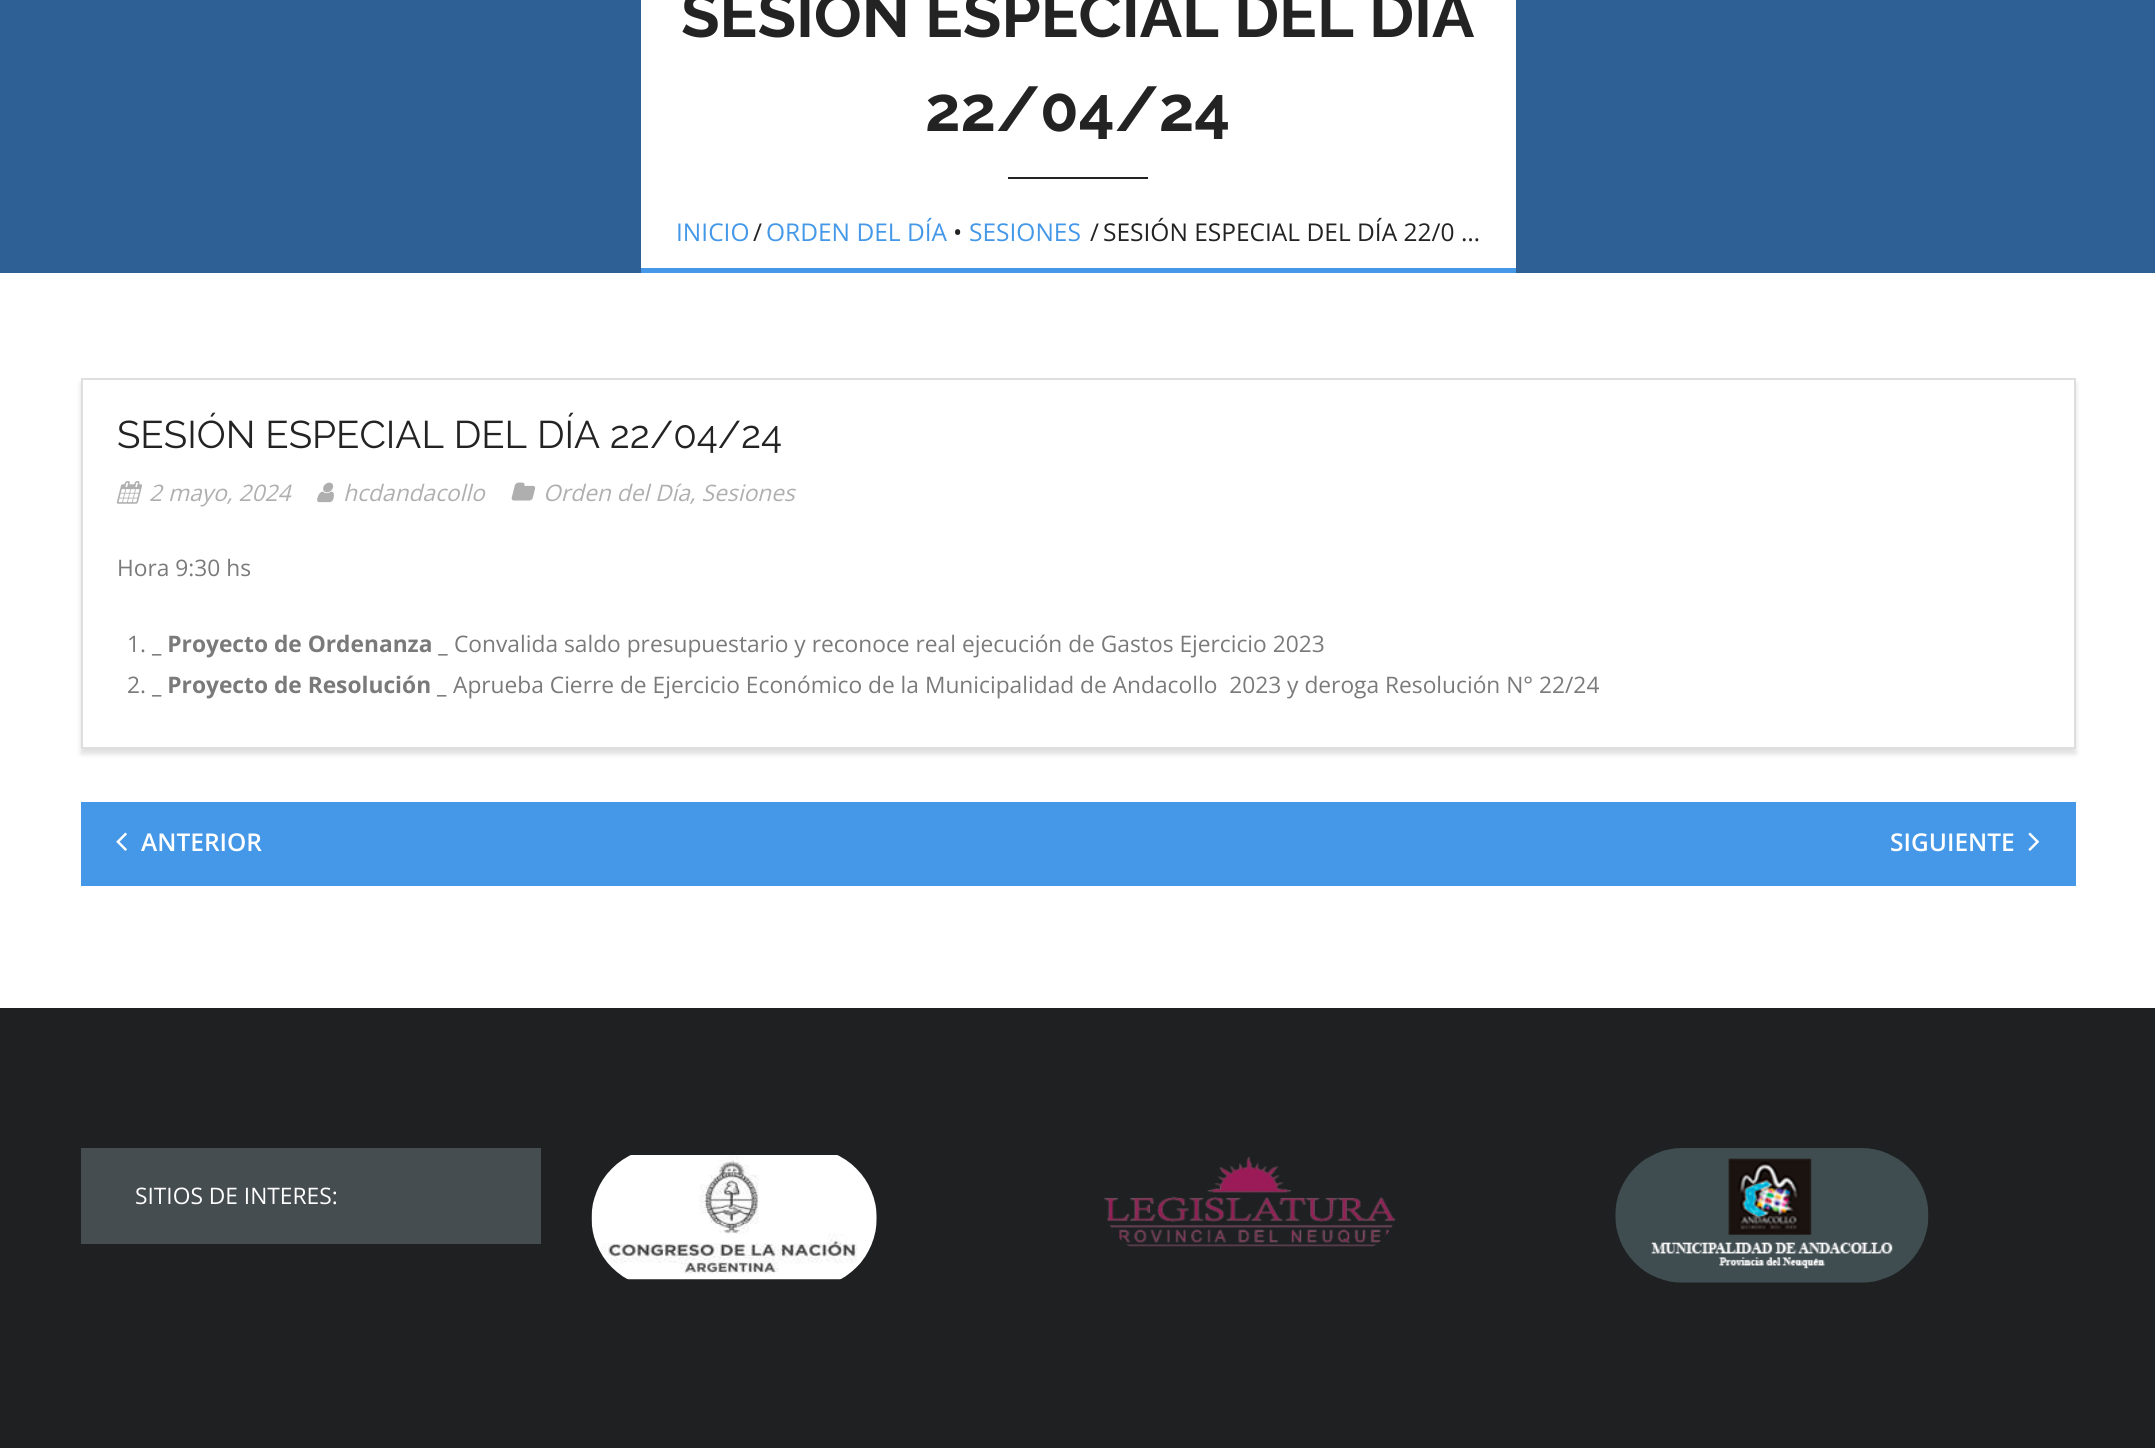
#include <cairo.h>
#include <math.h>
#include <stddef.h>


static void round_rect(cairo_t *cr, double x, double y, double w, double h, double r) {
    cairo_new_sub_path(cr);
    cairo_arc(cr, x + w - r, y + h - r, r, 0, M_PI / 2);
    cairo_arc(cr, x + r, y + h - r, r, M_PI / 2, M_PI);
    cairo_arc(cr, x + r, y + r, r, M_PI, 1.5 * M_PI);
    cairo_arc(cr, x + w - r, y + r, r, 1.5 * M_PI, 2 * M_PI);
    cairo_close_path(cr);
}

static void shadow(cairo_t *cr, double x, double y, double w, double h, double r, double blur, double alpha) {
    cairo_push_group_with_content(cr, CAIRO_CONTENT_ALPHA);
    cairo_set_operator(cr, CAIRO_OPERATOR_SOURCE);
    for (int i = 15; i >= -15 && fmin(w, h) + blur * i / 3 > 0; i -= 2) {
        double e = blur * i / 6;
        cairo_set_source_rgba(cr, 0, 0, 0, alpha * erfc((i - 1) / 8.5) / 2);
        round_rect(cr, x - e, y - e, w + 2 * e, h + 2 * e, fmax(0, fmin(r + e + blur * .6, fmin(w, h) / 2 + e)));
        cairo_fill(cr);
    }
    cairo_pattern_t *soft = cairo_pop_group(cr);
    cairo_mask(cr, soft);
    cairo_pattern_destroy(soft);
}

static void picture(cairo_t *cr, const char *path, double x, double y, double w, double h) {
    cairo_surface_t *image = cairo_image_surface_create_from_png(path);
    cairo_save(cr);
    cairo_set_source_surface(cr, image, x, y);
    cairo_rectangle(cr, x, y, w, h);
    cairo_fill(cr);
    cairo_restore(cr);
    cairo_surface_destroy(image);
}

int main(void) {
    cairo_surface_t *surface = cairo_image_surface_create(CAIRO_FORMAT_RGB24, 2155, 1448);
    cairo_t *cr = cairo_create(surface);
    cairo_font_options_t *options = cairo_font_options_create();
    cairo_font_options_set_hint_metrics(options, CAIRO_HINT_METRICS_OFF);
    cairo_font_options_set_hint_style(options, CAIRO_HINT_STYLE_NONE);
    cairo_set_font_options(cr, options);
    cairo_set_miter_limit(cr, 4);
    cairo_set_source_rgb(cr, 1, 1, 1);
    cairo_paint(cr);
    cairo_set_source_rgb(cr, 0.18, 0.376, 0.584);
    cairo_rectangle(cr, 0, 0, 2155, 273);
    cairo_fill(cr);
    cairo_set_source_rgb(cr, 1, 1, 1);
    cairo_rectangle(cr, 641, 0, 875, 268);
    cairo_fill(cr);
    cairo_set_source_rgb(cr, 0.267, 0.596, 0.906);
    cairo_rectangle(cr, 641, 268, 875, 5);
    cairo_fill(cr);
    cairo_select_font_face(cr, "Raleway", CAIRO_FONT_SLANT_NORMAL, CAIRO_FONT_WEIGHT_BOLD);
    cairo_set_font_size(cr, 63);
    cairo_set_source_rgb(cr, 0.137, 0.137, 0.137);
    cairo_move_to(cr, 681, 37);
    cairo_show_text(cr, "SESIÓN ESPECIAL DEL DÍA");
    cairo_move_to(cr, 925, 131);
    cairo_show_text(cr, "22/04/24");
    cairo_rectangle(cr, 1008, 177, 140, 2);
    cairo_fill(cr);
    cairo_select_font_face(cr, "Open Sans", CAIRO_FONT_SLANT_NORMAL, CAIRO_FONT_WEIGHT_NORMAL);
    cairo_set_font_size(cr, 24.5);
    cairo_set_source_rgb(cr, 0.267, 0.596, 0.906);
    cairo_move_to(cr, 676, 241);
    cairo_show_text(cr, "INICIO");
    cairo_set_source_rgb(cr, 0.137, 0.137, 0.137);
    cairo_move_to(cr, 753, 241);
    cairo_show_text(cr, "/");
    cairo_set_source_rgb(cr, 0.267, 0.596, 0.906);
    cairo_move_to(cr, 766, 241);
    cairo_show_text(cr, "ORDEN DEL DÍA");
    cairo_set_source_rgb(cr, 0.137, 0.137, 0.137);
    cairo_move_to(cr, 953, 241);
    cairo_show_text(cr, "•");
    cairo_set_source_rgb(cr, 0.267, 0.596, 0.906);
    cairo_move_to(cr, 969, 241);
    cairo_show_text(cr, "SESIONES");
    cairo_set_source_rgb(cr, 0.137, 0.137, 0.137);
    cairo_move_to(cr, 1090, 241);
    cairo_show_text(cr, "/");
    cairo_move_to(cr, 1103, 241);
    cairo_show_text(cr, "SESIÓN ESPECIAL DEL DÍA 22/0 …");
    cairo_save(cr);
    cairo_set_fill_rule(cr, CAIRO_FILL_RULE_EVEN_ODD);
    cairo_new_path(cr);
    cairo_move_to(cr, 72, 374);
    cairo_line_to(cr, 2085, 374);
    cairo_line_to(cr, 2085, 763);
    cairo_line_to(cr, 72, 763);
    cairo_close_path(cr);
    cairo_move_to(cr, 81, 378);
    cairo_line_to(cr, 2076, 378);
    cairo_line_to(cr, 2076, 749);
    cairo_line_to(cr, 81, 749);
    cairo_close_path(cr);
    cairo_clip(cr);
    cairo_set_source_rgb(cr, 0.137, 0.137, 0.137);
    shadow(cr, 81, 383, 1995, 371, 0, 2.5, 0.15);
    cairo_restore(cr);
    cairo_rectangle(cr, 82, 379, 1993, 369);
    cairo_set_source_rgba(cr, 0.137, 0.137, 0.137, 0.15);
    cairo_stroke(cr);
    cairo_select_font_face(cr, "Raleway", CAIRO_FONT_SLANT_NORMAL, CAIRO_FONT_WEIGHT_NORMAL);
    cairo_set_font_size(cr, 38.5);
    cairo_set_source_rgb(cr, 0.137, 0.137, 0.137);
    cairo_move_to(cr, 117, 448);
    cairo_show_text(cr, "SESIÓN ESPECIAL DEL DÍA 22/04/24");
    picture(cr, "img1.png", 116, 481, 26, 23);
    cairo_select_font_face(cr, "Open Sans", CAIRO_FONT_SLANT_ITALIC, CAIRO_FONT_WEIGHT_NORMAL);
    cairo_set_font_size(cr, 22.75);
    cairo_set_source_rgb(cr, 0.686, 0.686, 0.686);
    cairo_move_to(cr, 149, 501);
    cairo_show_text(cr, "2 mayo, 2024");
    picture(cr, "img2.png", 317, 482, 17, 21);
    cairo_move_to(cr, 343, 501);
    cairo_show_text(cr, "hcdandacollo");
    picture(cr, "img3.png", 511, 482, 25, 19);
    cairo_move_to(cr, 543, 501);
    cairo_show_text(cr, "Orden del Día, Sesiones");
    cairo_select_font_face(cr, "Open Sans", CAIRO_FONT_SLANT_NORMAL, CAIRO_FONT_WEIGHT_NORMAL);
    cairo_set_source_rgb(cr, 0.478, 0.478, 0.478);
    cairo_move_to(cr, 117, 576);
    cairo_show_text(cr, "Hora 9:30 hs");
    cairo_move_to(cr, 127, 652);
    cairo_show_text(cr, "1.");
    cairo_select_font_face(cr, "Open Sans", CAIRO_FONT_SLANT_NORMAL, CAIRO_FONT_WEIGHT_BOLD);
    cairo_move_to(cr, 152, 652);
    cairo_show_text(cr, "_ Proyecto de Ordenanza _");
    cairo_select_font_face(cr, "Open Sans", CAIRO_FONT_SLANT_NORMAL, CAIRO_FONT_WEIGHT_NORMAL);
    cairo_move_to(cr, 454, 652);
    cairo_show_text(cr, "Convalida saldo presupuestario y reconoce real ejecución de Gastos Ejercicio 2023");
    cairo_move_to(cr, 127, 693);
    cairo_show_text(cr, "2.");
    cairo_select_font_face(cr, "Open Sans", CAIRO_FONT_SLANT_NORMAL, CAIRO_FONT_WEIGHT_BOLD);
    cairo_move_to(cr, 152, 693);
    cairo_show_text(cr, "_ Proyecto de Resolución _");
    cairo_select_font_face(cr, "Open Sans", CAIRO_FONT_SLANT_NORMAL, CAIRO_FONT_WEIGHT_NORMAL);
    cairo_move_to(cr, 453, 693);
    cairo_show_text(cr, "Aprueba Cierre de Ejercicio Económico de la Municipalidad de Andacollo  2023 y deroga Resolución N° 22/24");
    cairo_set_source_rgb(cr, 0.267, 0.596, 0.906);
    cairo_rectangle(cr, 81, 802, 1995, 84);
    cairo_fill(cr);
    picture(cr, "img4.png", 116, 832, 11, 19);
    cairo_select_font_face(cr, "Open Sans SemiBold", CAIRO_FONT_SLANT_NORMAL, CAIRO_FONT_WEIGHT_NORMAL);
    cairo_set_font_size(cr, 24.5);
    cairo_set_source_rgb(cr, 1, 1, 1);
    cairo_move_to(cr, 141, 851);
    cairo_show_text(cr, "ANTERIOR");
    cairo_move_to(cr, 1890, 851);
    cairo_show_text(cr, "SIGUIENTE");
    picture(cr, "img5.png", 2028, 832, 12, 19);
    cairo_set_source_rgb(cr, 0.118, 0.125, 0.129);
    cairo_rectangle(cr, 0, 1008, 2155, 440);
    cairo_fill(cr);
    cairo_set_source_rgb(cr, 0.271, 0.302, 0.318);
    cairo_rectangle(cr, 81, 1148, 460, 96);
    cairo_fill(cr);
    cairo_select_font_face(cr, "Open Sans", CAIRO_FONT_SLANT_NORMAL, CAIRO_FONT_WEIGHT_NORMAL);
    cairo_set_font_size(cr, 22.75);
    cairo_set_source_rgb(cr, 1, 1, 1);
    cairo_move_to(cr, 135, 1204);
    cairo_show_text(cr, "SITIOS DE INTERES:");
    picture(cr, "img6.png", 591, 1155, 286, 125);
    picture(cr, "img7.png", 1104, 1156, 292, 91);
    picture(cr, "img8.png", 1615, 1148, 314, 135);
    cairo_surface_write_to_png(surface, "page.png");
    cairo_font_options_destroy(options);
    cairo_destroy(cr);
    cairo_surface_destroy(surface);
    return 0;
}
